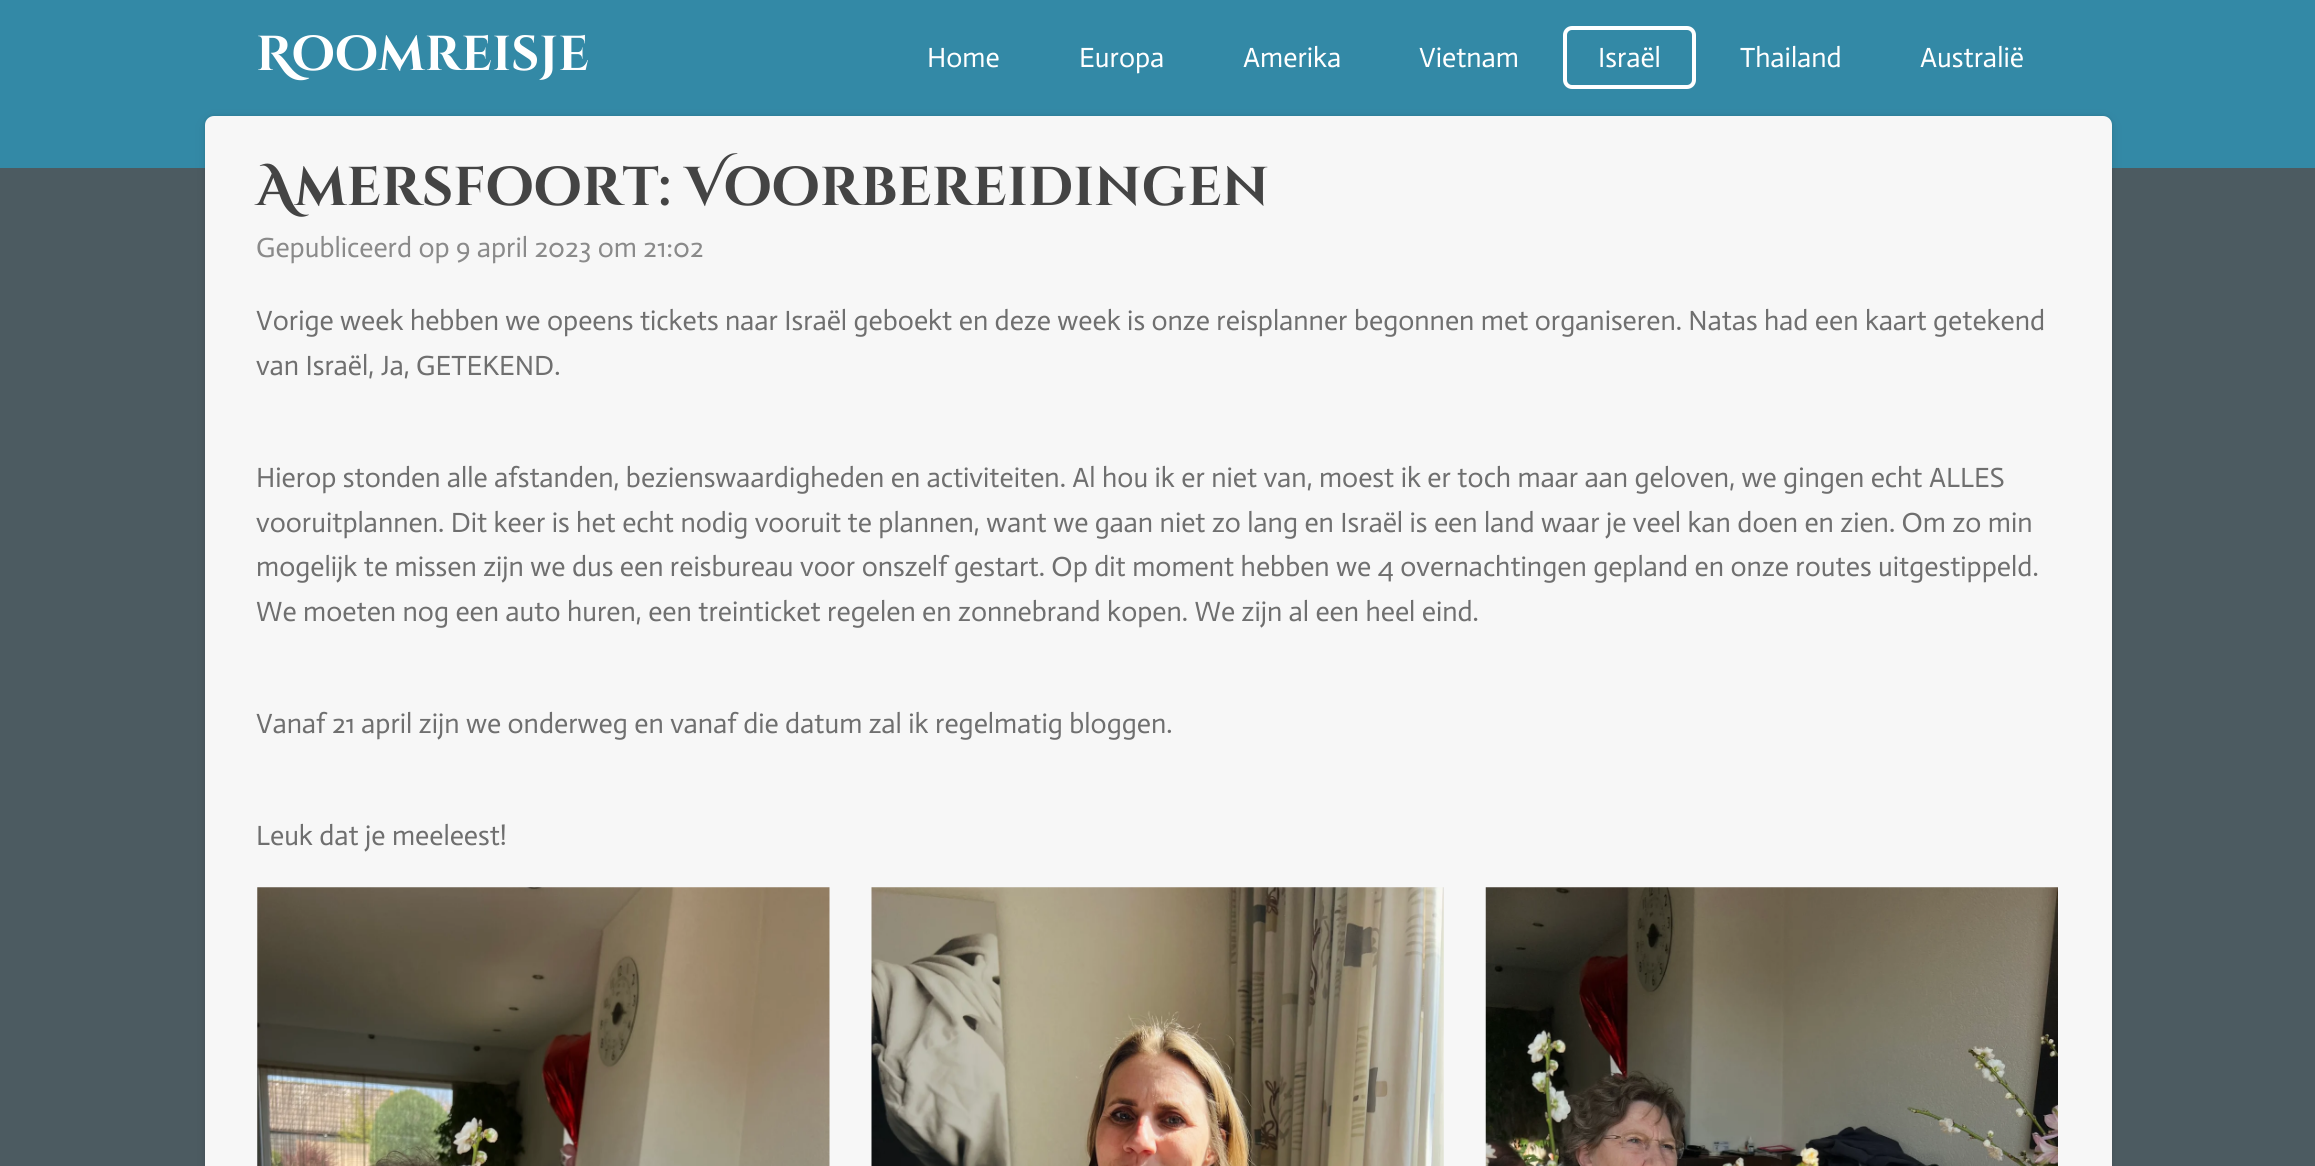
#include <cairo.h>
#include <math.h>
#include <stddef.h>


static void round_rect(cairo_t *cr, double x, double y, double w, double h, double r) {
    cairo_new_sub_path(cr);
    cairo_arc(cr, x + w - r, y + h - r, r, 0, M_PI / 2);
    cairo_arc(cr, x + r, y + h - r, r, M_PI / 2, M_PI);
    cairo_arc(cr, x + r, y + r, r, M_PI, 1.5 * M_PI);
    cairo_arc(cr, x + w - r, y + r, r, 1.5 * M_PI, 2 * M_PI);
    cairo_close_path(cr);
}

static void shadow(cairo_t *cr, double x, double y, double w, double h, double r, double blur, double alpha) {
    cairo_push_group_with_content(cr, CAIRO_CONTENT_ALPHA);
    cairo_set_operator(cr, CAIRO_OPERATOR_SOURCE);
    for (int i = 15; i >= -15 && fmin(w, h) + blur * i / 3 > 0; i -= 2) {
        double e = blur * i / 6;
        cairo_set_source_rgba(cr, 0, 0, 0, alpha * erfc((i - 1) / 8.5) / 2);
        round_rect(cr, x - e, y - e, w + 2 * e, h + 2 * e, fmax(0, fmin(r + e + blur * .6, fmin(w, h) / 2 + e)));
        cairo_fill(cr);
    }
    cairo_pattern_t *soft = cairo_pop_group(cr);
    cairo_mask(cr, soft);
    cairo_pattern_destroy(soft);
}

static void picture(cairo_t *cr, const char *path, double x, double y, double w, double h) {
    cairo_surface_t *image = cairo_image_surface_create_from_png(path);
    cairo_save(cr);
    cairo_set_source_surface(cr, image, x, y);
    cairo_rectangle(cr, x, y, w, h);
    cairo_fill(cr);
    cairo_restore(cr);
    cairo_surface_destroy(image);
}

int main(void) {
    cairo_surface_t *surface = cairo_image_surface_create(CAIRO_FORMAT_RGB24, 2315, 1166);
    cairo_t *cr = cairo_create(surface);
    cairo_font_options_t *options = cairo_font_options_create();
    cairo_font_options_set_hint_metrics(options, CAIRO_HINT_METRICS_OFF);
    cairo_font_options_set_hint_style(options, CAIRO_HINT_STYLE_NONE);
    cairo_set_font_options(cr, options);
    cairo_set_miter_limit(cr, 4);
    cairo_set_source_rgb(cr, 0.298, 0.357, 0.38);
    cairo_paint(cr);
    cairo_set_source_rgb(cr, 0.2, 0.537, 0.651);
    cairo_rectangle(cr, 0, 0, 2315, 168);
    cairo_fill(cr);
    cairo_select_font_face(cr, "Cinzel Decorative", CAIRO_FONT_SLANT_NORMAL, CAIRO_FONT_WEIGHT_BOLD);
    cairo_set_font_size(cr, 49);
    cairo_set_source_rgb(cr, 1, 1, 1);
    cairo_move_to(cr, 256, 70);
    cairo_show_text(cr, "Roomreisje");
    cairo_select_font_face(cr, "Actor", CAIRO_FONT_SLANT_NORMAL, CAIRO_FONT_WEIGHT_NORMAL);
    cairo_set_font_size(cr, 28);
    cairo_move_to(cr, 927, 67);
    cairo_show_text(cr, "Home");
    cairo_move_to(cr, 1079, 67);
    cairo_show_text(cr, "Europa");
    cairo_move_to(cr, 1243, 67);
    cairo_show_text(cr, "Amerika");
    cairo_move_to(cr, 1419, 67);
    cairo_show_text(cr, "Vietnam");
    round_rect(cr, 1565, 28, 129, 59, 7);
    cairo_set_line_width(cr, 4);
    cairo_stroke(cr);
    cairo_move_to(cr, 1598, 67);
    cairo_show_text(cr, "Israël");
    cairo_move_to(cr, 1740, 67);
    cairo_show_text(cr, "Thailand");
    cairo_move_to(cr, 1920, 67);
    cairo_show_text(cr, "Australië");
    cairo_set_source_rgb(cr, 0, 0, 0);
    shadow(cr, 205, 116, 1907, 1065, 9, 2, 0.1);
    shadow(cr, 205, 119, 1907, 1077, 9, 7, 0.07);
    cairo_set_source_rgb(cr, 0.965, 0.965, 0.965);
    round_rect(cr, 205, 116, 1907, 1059, 9);
    cairo_fill(cr);
    cairo_select_font_face(cr, "Cinzel Decorative", CAIRO_FONT_SLANT_NORMAL, CAIRO_FONT_WEIGHT_BOLD);
    cairo_set_font_size(cr, 54.6);
    cairo_set_source_rgb(cr, 0.267, 0.267, 0.267);
    cairo_move_to(cr, 256, 205);
    cairo_show_text(cr, "Amersfoort: Voorbereidingen");
    cairo_select_font_face(cr, "Actor", CAIRO_FONT_SLANT_NORMAL, CAIRO_FONT_WEIGHT_NORMAL);
    cairo_set_font_size(cr, 28);
    cairo_set_source_rgb(cr, 0.541, 0.541, 0.541);
    cairo_move_to(cr, 256, 257);
    cairo_show_text(cr, "Gepubliceerd op 9 april 2023 om 21:02");
    cairo_set_source_rgb(cr, 0.435, 0.435, 0.435);
    cairo_move_to(cr, 256, 330);
    cairo_show_text(cr, "Vorige week hebben we opeens tickets naar Israël geboekt en deze week is onze reisplanner begonnen met organiseren. Natas had een kaart getekend");
    cairo_move_to(cr, 256, 375);
    cairo_show_text(cr, "van Israël, Ja, GETEKEND.");
    cairo_move_to(cr, 256, 487);
    cairo_show_text(cr, "Hierop stonden alle afstanden, bezienswaardigheden en activiteiten. Al hou ik er niet van, moest ik er toch maar aan geloven, we gingen echt ALLES");
    cairo_move_to(cr, 256, 532);
    cairo_show_text(cr, "vooruitplannen. Dit keer is het echt nodig vooruit te plannen, want we gaan niet zo lang en Israël is een land waar je veel kan doen en zien. Om zo min");
    cairo_move_to(cr, 256, 576);
    cairo_show_text(cr, "mogelijk te missen zijn we dus een reisbureau voor onszelf gestart. Op dit moment hebben we 4 overnachtingen gepland en onze routes uitgestippeld.");
    cairo_move_to(cr, 256, 621);
    cairo_show_text(cr, "We moeten nog een auto huren, een treinticket regelen en zonnebrand kopen. We zijn al een heel eind.");
    cairo_move_to(cr, 256, 733);
    cairo_show_text(cr, "Vanaf 21 april zijn we onderweg en vanaf die datum zal ik regelmatig bloggen.");
    cairo_move_to(cr, 256, 845);
    cairo_show_text(cr, "Leuk dat je meeleest!");
    picture(cr, "img1.png", 257, 887, 573, 279);
    picture(cr, "img2.png", 871, 887, 573, 279);
    picture(cr, "img3.png", 1485, 887, 573, 279);
    cairo_surface_write_to_png(surface, "page.png");
    cairo_font_options_destroy(options);
    cairo_destroy(cr);
    cairo_surface_destroy(surface);
    return 0;
}
